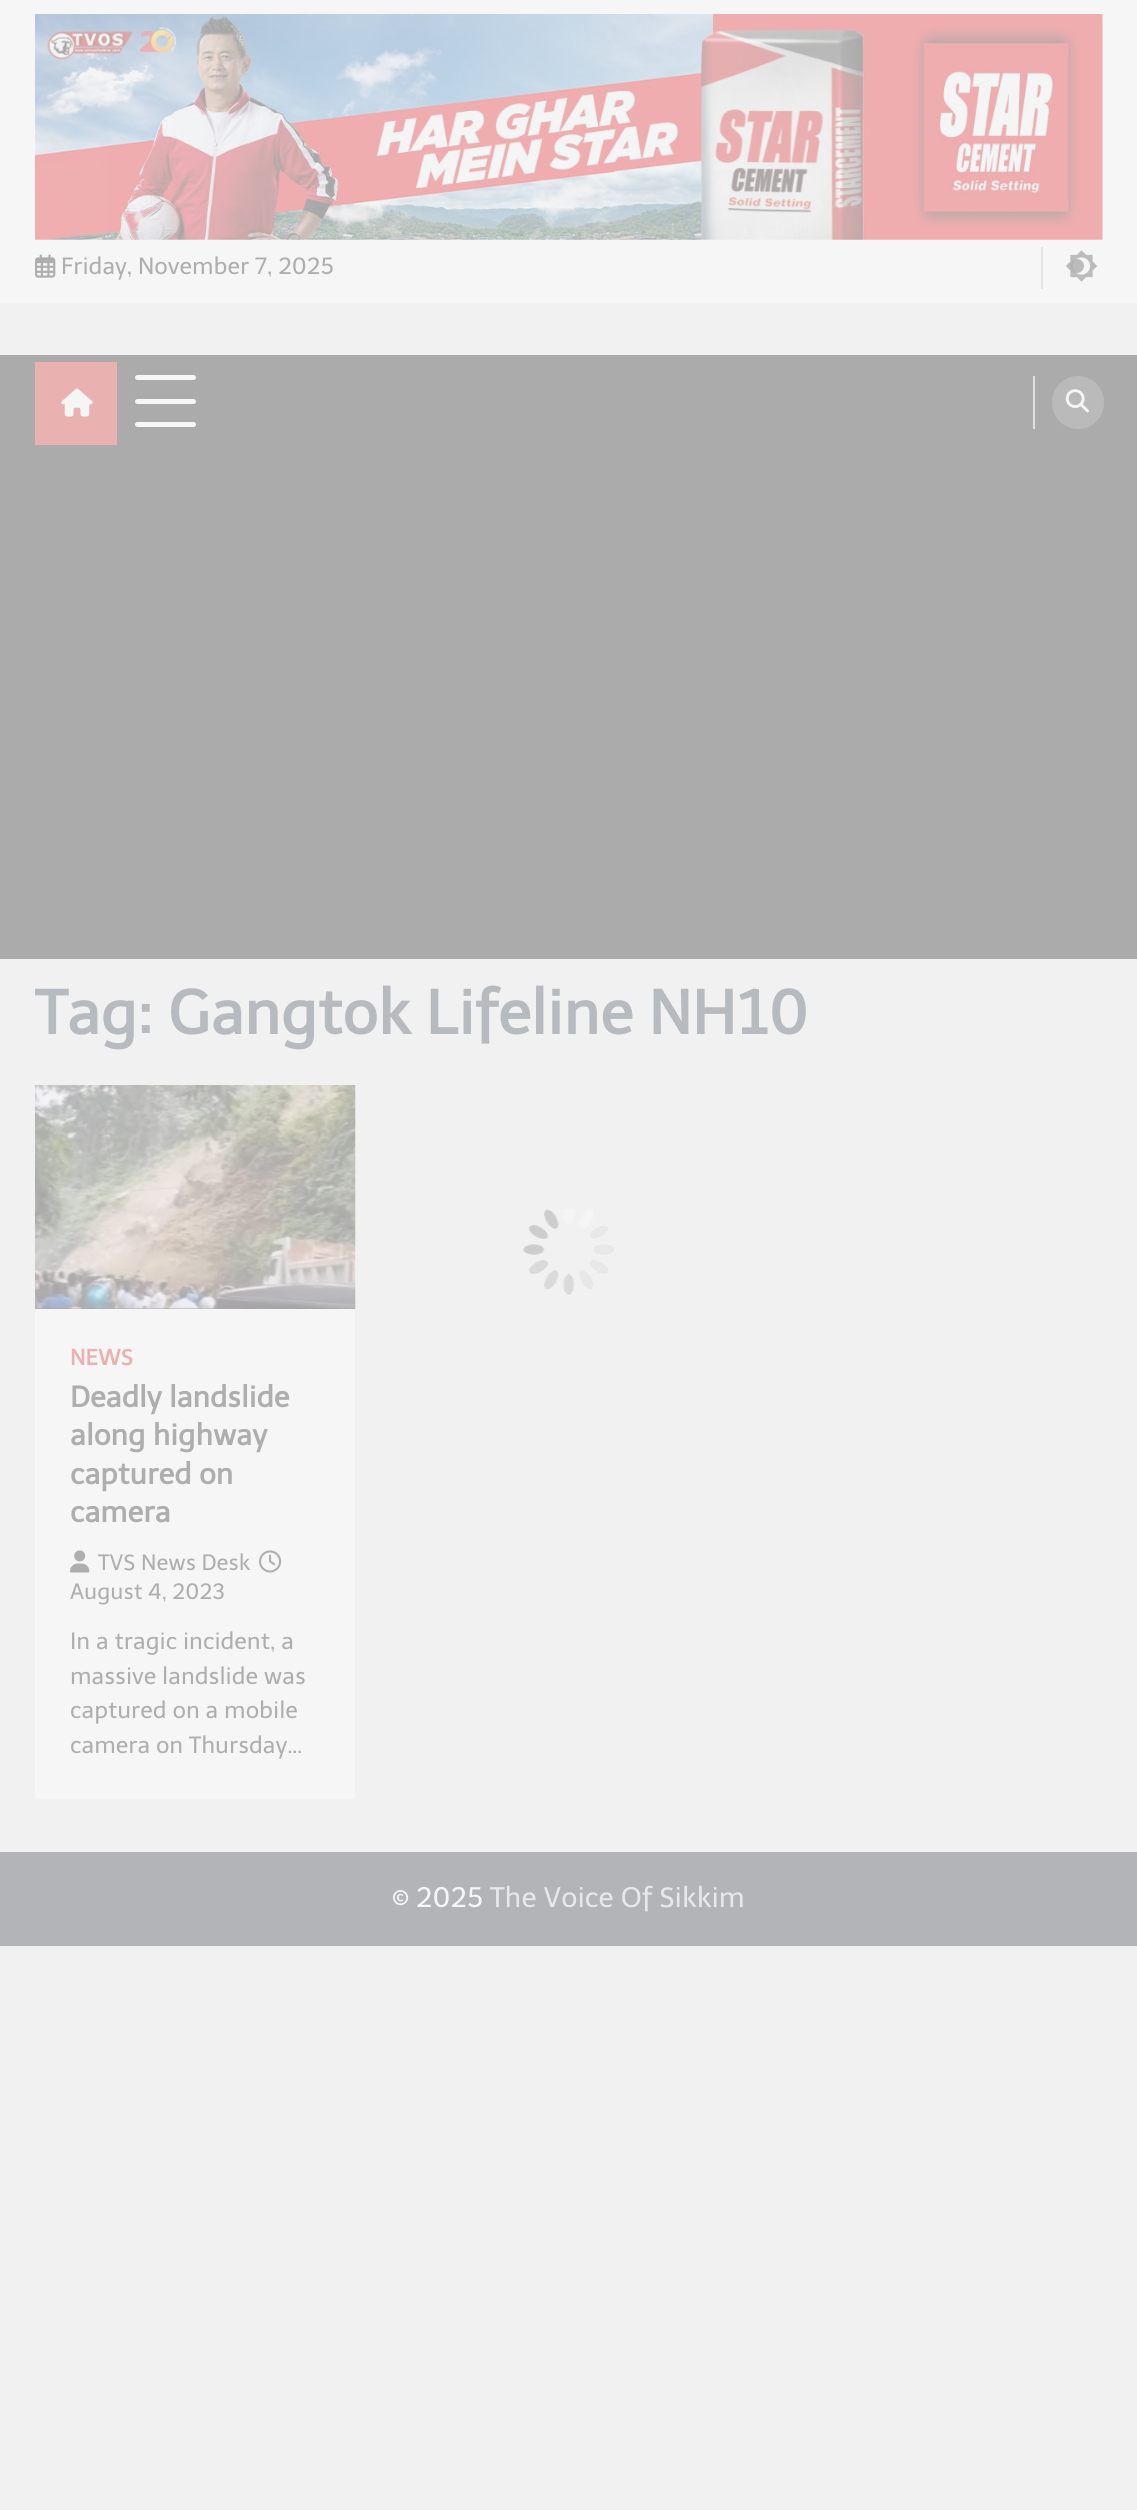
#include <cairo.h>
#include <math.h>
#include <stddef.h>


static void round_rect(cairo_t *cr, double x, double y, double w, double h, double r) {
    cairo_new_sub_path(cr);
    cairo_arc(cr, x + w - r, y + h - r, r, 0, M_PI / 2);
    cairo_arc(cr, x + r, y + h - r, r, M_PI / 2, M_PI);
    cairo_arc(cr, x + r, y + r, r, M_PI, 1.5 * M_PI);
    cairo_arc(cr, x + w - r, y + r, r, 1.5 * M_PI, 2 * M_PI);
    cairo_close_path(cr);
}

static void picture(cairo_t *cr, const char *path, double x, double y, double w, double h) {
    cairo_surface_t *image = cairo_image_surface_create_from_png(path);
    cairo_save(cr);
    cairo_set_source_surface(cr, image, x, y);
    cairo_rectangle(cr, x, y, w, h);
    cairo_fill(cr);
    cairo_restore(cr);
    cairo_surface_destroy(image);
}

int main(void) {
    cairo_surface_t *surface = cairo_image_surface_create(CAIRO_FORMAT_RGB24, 1137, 2510);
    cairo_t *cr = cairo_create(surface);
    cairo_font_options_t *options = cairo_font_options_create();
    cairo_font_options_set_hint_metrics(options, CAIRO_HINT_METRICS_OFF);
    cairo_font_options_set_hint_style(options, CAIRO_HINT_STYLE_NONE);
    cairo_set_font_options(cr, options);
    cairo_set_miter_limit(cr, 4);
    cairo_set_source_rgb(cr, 0.945, 0.945, 0.945);
    cairo_paint(cr);
    cairo_set_source_rgb(cr, 0.961, 0.961, 0.961);
    cairo_rectangle(cr, 0, 0, 1137, 303);
    cairo_fill(cr);
    picture(cr, "img1.png", 35, 14, 1068, 226);
    picture(cr, "img2.png", 35, 254, 21, 24);
    cairo_select_font_face(cr, "Telex", CAIRO_FONT_SLANT_NORMAL, CAIRO_FONT_WEIGHT_NORMAL);
    cairo_set_font_size(cr, 23.25);
    cairo_set_source_rgb(cr, 0.682, 0.682, 0.686);
    cairo_move_to(cr, 61, 274);
    cairo_show_text(cr, "Friday, November 7, 2025");
    cairo_set_source_rgb(cr, 0.894, 0.898, 0.902);
    cairo_rectangle(cr, 1041, 247, 2, 42);
    cairo_fill(cr);
    picture(cr, "img3.png", 1066, 250, 31, 32);
    cairo_set_source_rgb(cr, 0.671, 0.671, 0.675);
    cairo_rectangle(cr, 0, 355, 1137, 604);
    cairo_fill(cr);
    cairo_set_source_rgb(cr, 0.914, 0.694, 0.69);
    cairo_rectangle(cr, 35, 362, 82, 83);
    cairo_fill(cr);
    picture(cr, "img4.png", 61, 388, 32, 29);
    cairo_set_source_rgb(cr, 0.961, 0.961, 0.961);
    round_rect(cr, 135, 375, 61, 5, 2.5);
    cairo_fill(cr);
    round_rect(cr, 135, 399, 61, 5, 2.5);
    cairo_fill(cr);
    round_rect(cr, 135, 422, 61, 5, 2.5);
    cairo_fill(cr);
    cairo_set_source_rgb(cr, 0.875, 0.875, 0.875);
    cairo_rectangle(cr, 1033, 376, 2, 53);
    cairo_fill(cr);
    cairo_set_source_rgb(cr, 0.729, 0.729, 0.729);
    round_rect(cr, 1052, 376, 52, 53, 26);
    cairo_fill(cr);
    picture(cr, "img5.png", 1065, 389, 24, 24);
    cairo_select_font_face(cr, "Telex", CAIRO_FONT_SLANT_NORMAL, CAIRO_FONT_WEIGHT_BOLD);
    cairo_set_font_size(cr, 61.5);
    cairo_set_source_rgb(cr, 0.718, 0.729, 0.745);
    cairo_move_to(cr, 35, 1034);
    cairo_show_text(cr, "Tag: Gangtok Lifeline NH10");
    cairo_set_source_rgb(cr, 0.961, 0.961, 0.961);
    cairo_rectangle(cr, 35, 1309, 320, 490);
    cairo_fill(cr);
    picture(cr, "img6.png", 35, 1085, 321, 224);
    cairo_set_font_size(cr, 22);
    cairo_set_source_rgb(cr, 0.914, 0.694, 0.69);
    cairo_move_to(cr, 70, 1365);
    cairo_show_text(cr, "NEWS");
    cairo_set_font_size(cr, 29.25);
    cairo_set_source_rgb(cr, 0.682, 0.682, 0.686);
    cairo_move_to(cr, 70, 1407);
    cairo_show_text(cr, "Deadly landslide");
    cairo_move_to(cr, 70, 1445);
    cairo_show_text(cr, "along highway");
    cairo_move_to(cr, 70, 1484);
    cairo_show_text(cr, "captured on");
    cairo_move_to(cr, 70, 1522);
    cairo_show_text(cr, "camera");
    picture(cr, "img7.png", 70, 1550, 20, 23);
    cairo_select_font_face(cr, "Telex", CAIRO_FONT_SLANT_NORMAL, CAIRO_FONT_WEIGHT_NORMAL);
    cairo_set_font_size(cr, 22);
    cairo_move_to(cr, 98, 1570);
    cairo_show_text(cr, "TVS News Desk");
    picture(cr, "img8.png", 259, 1550, 23, 23);
    cairo_move_to(cr, 70, 1599);
    cairo_show_text(cr, "August 4, 2023");
    cairo_set_font_size(cr, 23.25);
    cairo_move_to(cr, 70, 1649);
    cairo_show_text(cr, "In a tragic incident, a");
    cairo_move_to(cr, 70, 1684);
    cairo_show_text(cr, "massive landslide was");
    cairo_move_to(cr, 70, 1718);
    cairo_show_text(cr, "captured on a mobile");
    cairo_move_to(cr, 70, 1753);
    cairo_show_text(cr, "camera on Thursday…");
    picture(cr, "img9.png", 523, 1209, 91, 86);
    cairo_set_source_rgb(cr, 0.698, 0.706, 0.718);
    cairo_rectangle(cr, 0, 1852, 1137, 94);
    cairo_fill(cr);
    cairo_set_font_size(cr, 28);
    cairo_set_source_rgb(cr, 0.961, 0.961, 0.961);
    cairo_move_to(cr, 392, 1907);
    cairo_show_text(cr, "© 2025");
    cairo_set_source_rgb(cr, 0.91, 0.91, 0.914);
    cairo_move_to(cr, 490, 1907);
    cairo_show_text(cr, "The Voice Of Sikkim");
    cairo_surface_write_to_png(surface, "page.png");
    cairo_font_options_destroy(options);
    cairo_destroy(cr);
    cairo_surface_destroy(surface);
    return 0;
}
